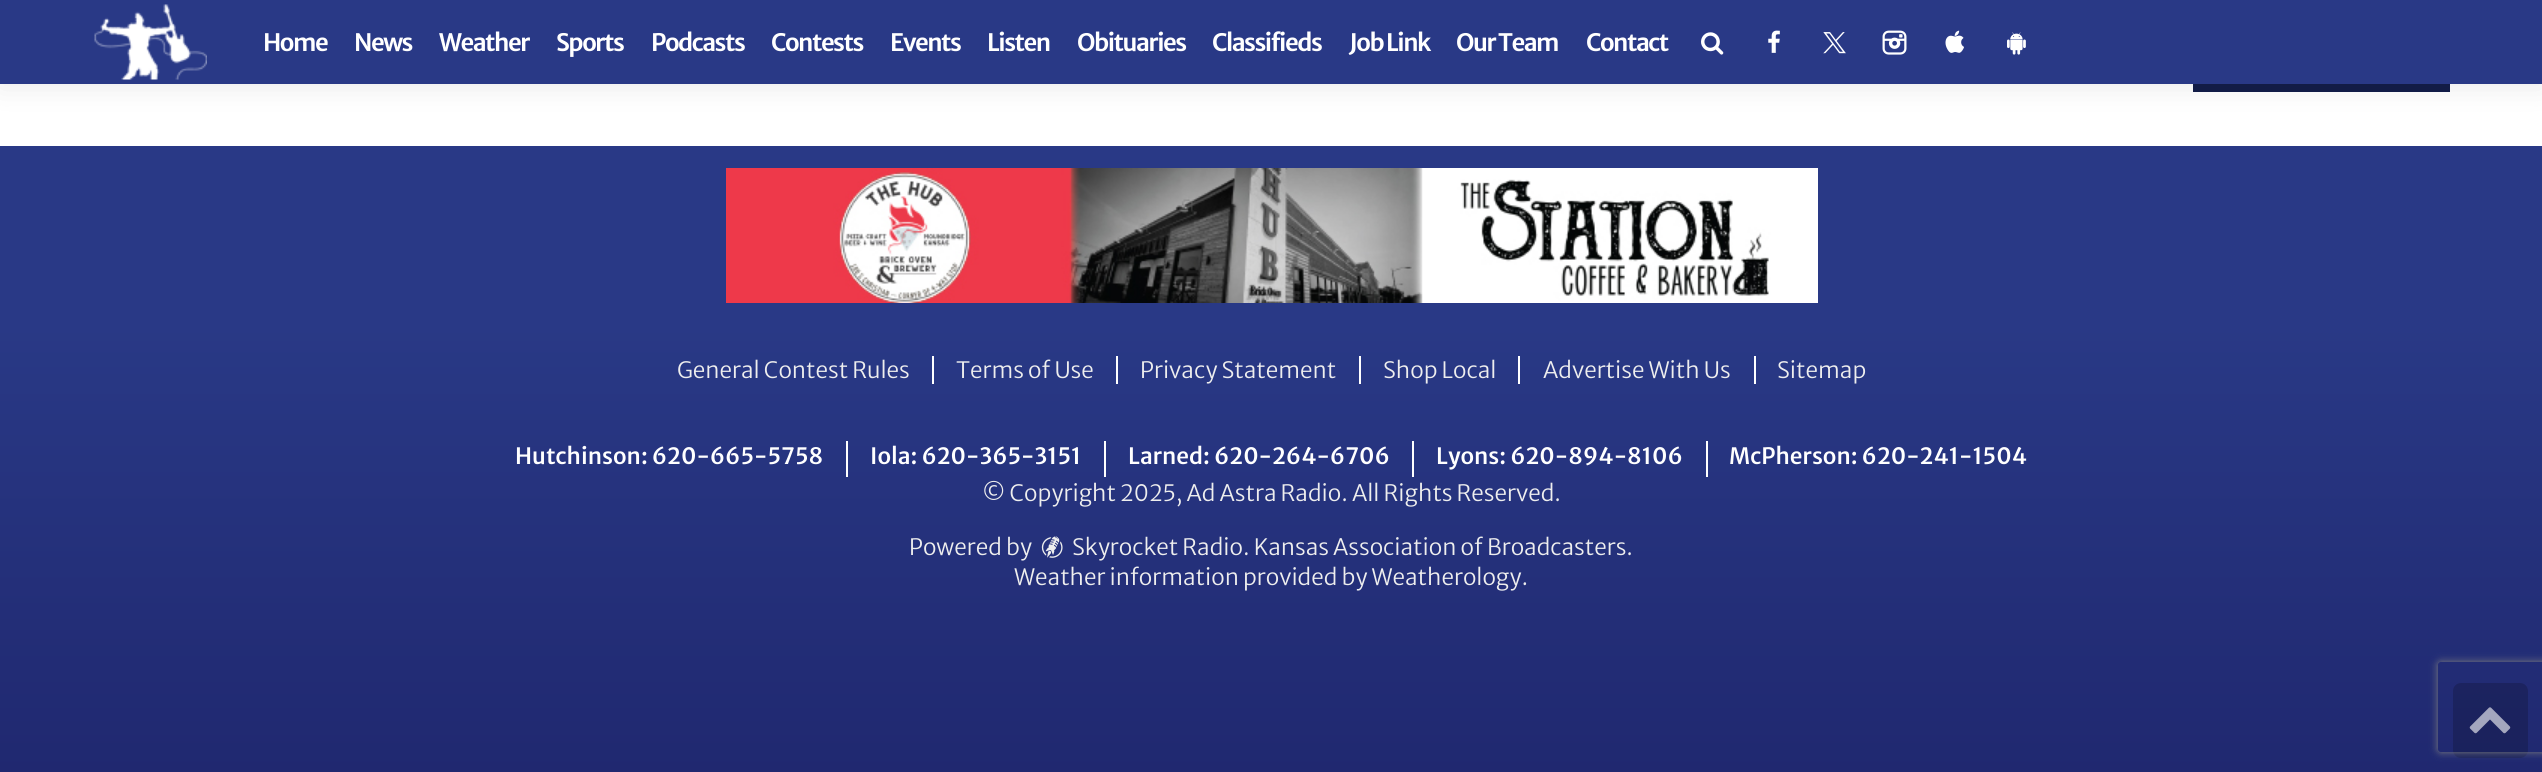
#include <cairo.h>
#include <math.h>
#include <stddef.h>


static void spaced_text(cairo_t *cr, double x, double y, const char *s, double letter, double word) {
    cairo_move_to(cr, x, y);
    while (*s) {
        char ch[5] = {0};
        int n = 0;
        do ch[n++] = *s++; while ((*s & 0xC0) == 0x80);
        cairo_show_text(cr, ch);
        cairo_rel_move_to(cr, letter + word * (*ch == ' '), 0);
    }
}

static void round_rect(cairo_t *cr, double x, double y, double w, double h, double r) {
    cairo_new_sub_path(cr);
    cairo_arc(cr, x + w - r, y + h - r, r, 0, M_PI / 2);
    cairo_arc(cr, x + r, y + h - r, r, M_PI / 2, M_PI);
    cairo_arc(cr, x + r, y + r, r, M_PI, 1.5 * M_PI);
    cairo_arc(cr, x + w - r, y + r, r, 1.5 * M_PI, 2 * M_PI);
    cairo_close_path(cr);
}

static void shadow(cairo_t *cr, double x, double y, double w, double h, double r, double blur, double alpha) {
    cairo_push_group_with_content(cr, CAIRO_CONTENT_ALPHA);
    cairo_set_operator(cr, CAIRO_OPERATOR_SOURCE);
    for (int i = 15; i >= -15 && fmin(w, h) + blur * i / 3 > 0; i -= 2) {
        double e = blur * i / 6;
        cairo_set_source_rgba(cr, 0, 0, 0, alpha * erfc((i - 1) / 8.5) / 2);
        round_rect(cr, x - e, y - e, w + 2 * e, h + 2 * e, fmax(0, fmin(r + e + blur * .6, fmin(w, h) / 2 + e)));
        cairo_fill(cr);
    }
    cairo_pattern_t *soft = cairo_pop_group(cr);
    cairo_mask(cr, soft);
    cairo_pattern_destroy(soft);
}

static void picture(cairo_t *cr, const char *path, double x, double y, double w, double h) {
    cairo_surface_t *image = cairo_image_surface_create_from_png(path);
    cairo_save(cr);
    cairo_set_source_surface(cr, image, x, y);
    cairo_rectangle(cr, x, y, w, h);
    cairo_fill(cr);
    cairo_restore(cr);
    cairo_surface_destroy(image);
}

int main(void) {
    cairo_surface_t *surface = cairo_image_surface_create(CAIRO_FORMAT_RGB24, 2542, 772);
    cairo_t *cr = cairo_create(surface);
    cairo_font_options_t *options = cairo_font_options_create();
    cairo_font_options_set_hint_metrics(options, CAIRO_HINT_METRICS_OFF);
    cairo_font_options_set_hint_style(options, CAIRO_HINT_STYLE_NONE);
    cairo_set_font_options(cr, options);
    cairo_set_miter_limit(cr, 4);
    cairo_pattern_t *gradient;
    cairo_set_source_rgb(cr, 1, 1, 1);
    cairo_paint(cr);
    cairo_set_source_rgb(cr, 0.078, 0.114, 0.286);
    cairo_rectangle(cr, 2193, 84, 257, 8);
    cairo_fill(cr);
    cairo_set_source_rgb(cr, 0, 0, 0);
    shadow(cr, 0, 0, 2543, 84, 0, 15, 0.1);
    cairo_set_source_rgb(cr, 0.161, 0.224, 0.525);
    cairo_rectangle(cr, 0, 0, 2542, 84);
    cairo_fill(cr);
    picture(cr, "img1.png", 94, 4, 113, 76);
    cairo_select_font_face(cr, "Merriweather Sans SemiBold", CAIRO_FONT_SLANT_NORMAL, CAIRO_FONT_WEIGHT_NORMAL);
    cairo_set_font_size(cr, 24);
    cairo_set_source_rgb(cr, 1, 1, 1);
    spaced_text(cr, 263, 51, "Home", -1.5, 0);
    spaced_text(cr, 354, 51, "News", -1.5, 0);
    spaced_text(cr, 439, 51, "Weather", -1.5, 0);
    spaced_text(cr, 556, 51, "Sports", -1.5, 0);
    spaced_text(cr, 651, 51, "Podcasts", -1.5, 0);
    spaced_text(cr, 771, 51, "Contests", -1.5, 0);
    spaced_text(cr, 890, 51, "Events", -1.5, 0);
    spaced_text(cr, 987, 51, "Listen", -1.5, 0);
    spaced_text(cr, 1077, 51, "Obituaries", -1.5, 0);
    spaced_text(cr, 1212, 51, "Classifieds", -1.5, 0);
    spaced_text(cr, 1349, 51, "Job Link", -1.5, 0);
    spaced_text(cr, 1456, 51, "Our Team", -1.5, 0);
    spaced_text(cr, 1586, 51, "Contact", -1.5, 0);
    picture(cr, "img2.png", 1701, 32, 23, 23);
    picture(cr, "img3.png", 1768, 30, 12, 23);
    picture(cr, "img4.png", 1823, 32, 23, 22);
    picture(cr, "img5.png", 1882, 30, 25, 25);
    picture(cr, "img6.png", 1945, 30, 19, 23);
    picture(cr, "img7.png", 2007, 32, 19, 23);
    cairo_set_source_rgb(cr, 0.161, 0.224, 0.525);
    cairo_rectangle(cr, 0, 146, 2542, 180);
    cairo_fill(cr);
    picture(cr, "img8.png", 726, 168, 1092, 135);
    gradient = cairo_pattern_create_linear(1271, 325, 1271, 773);
    cairo_pattern_add_color_stop_rgba(gradient, 0, 0.161, 0.224, 0.525, 1);
    cairo_pattern_add_color_stop_rgba(gradient, 1, 0.125, 0.157, 0.439, 1);
    cairo_set_source(cr, gradient);
    cairo_pattern_destroy(gradient);
    cairo_rectangle(cr, 0, 326, 2542, 446);
    cairo_fill(cr);
    cairo_select_font_face(cr, "Merriweather Sans Light", CAIRO_FONT_SLANT_NORMAL, CAIRO_FONT_WEIGHT_NORMAL);
    cairo_set_font_size(cr, 22.5);
    cairo_set_source_rgb(cr, 0.933, 0.933, 0.933);
    cairo_move_to(cr, 677, 378);
    cairo_show_text(cr, "General Contest Rules");
    cairo_set_source_rgb(cr, 1, 1, 1);
    cairo_rectangle(cr, 932, 356, 2, 28);
    cairo_fill(cr);
    cairo_set_source_rgb(cr, 0.933, 0.933, 0.933);
    cairo_move_to(cr, 956, 378);
    cairo_show_text(cr, "Terms of Use");
    cairo_set_source_rgb(cr, 1, 1, 1);
    cairo_rectangle(cr, 1116, 356, 2, 28);
    cairo_fill(cr);
    cairo_set_source_rgb(cr, 0.933, 0.933, 0.933);
    cairo_move_to(cr, 1140, 378);
    cairo_show_text(cr, "Privacy Statement");
    cairo_set_source_rgb(cr, 1, 1, 1);
    cairo_rectangle(cr, 1359, 356, 2, 28);
    cairo_fill(cr);
    cairo_set_source_rgb(cr, 0.933, 0.933, 0.933);
    cairo_move_to(cr, 1383, 378);
    cairo_show_text(cr, "Shop Local");
    cairo_set_source_rgb(cr, 1, 1, 1);
    cairo_rectangle(cr, 1518, 356, 2, 28);
    cairo_fill(cr);
    cairo_set_source_rgb(cr, 0.933, 0.933, 0.933);
    cairo_move_to(cr, 1543, 378);
    cairo_show_text(cr, "Advertise With Us");
    cairo_set_source_rgb(cr, 1, 1, 1);
    cairo_rectangle(cr, 1754, 356, 2, 28);
    cairo_fill(cr);
    cairo_set_source_rgb(cr, 0.933, 0.933, 0.933);
    cairo_move_to(cr, 1777, 378);
    cairo_show_text(cr, "Sitemap");
    cairo_select_font_face(cr, "Merriweather Sans Medium", CAIRO_FONT_SLANT_NORMAL, CAIRO_FONT_WEIGHT_NORMAL);
    cairo_set_source_rgb(cr, 1, 1, 1);
    cairo_move_to(cr, 515, 464);
    cairo_show_text(cr, "Hutchinson: 620-665-5758");
    cairo_rectangle(cr, 846, 441, 2, 36);
    cairo_fill(cr);
    cairo_move_to(cr, 870, 464);
    cairo_show_text(cr, "Iola: 620-365-3151");
    cairo_rectangle(cr, 1104, 441, 2, 36);
    cairo_fill(cr);
    cairo_move_to(cr, 1128, 464);
    cairo_show_text(cr, "Larned: 620-264-6706");
    cairo_rectangle(cr, 1412, 441, 2, 36);
    cairo_fill(cr);
    cairo_move_to(cr, 1436, 464);
    cairo_show_text(cr, "Lyons: 620-894-8106");
    cairo_rectangle(cr, 1706, 441, 2, 36);
    cairo_fill(cr);
    cairo_move_to(cr, 1729, 464);
    cairo_show_text(cr, "McPherson: 620-241-1504");
    cairo_select_font_face(cr, "Merriweather Sans Light", CAIRO_FONT_SLANT_NORMAL, CAIRO_FONT_WEIGHT_NORMAL);
    cairo_set_source_rgb(cr, 0.933, 0.933, 0.933);
    cairo_move_to(cr, 982, 501);
    cairo_show_text(cr, "© Copyright 2025, Ad Astra Radio. All Rights Reserved.");
    cairo_move_to(cr, 909, 555);
    cairo_show_text(cr, "Powered by");
    picture(cr, "img9.png", 1041, 536, 22, 22);
    cairo_move_to(cr, 1072, 555);
    cairo_show_text(cr, "Skyrocket Radio. Kansas Association of Broadcasters.");
    cairo_move_to(cr, 1014, 585);
    cairo_show_text(cr, "Weather information provided by Weatherology.");
    cairo_set_source_rgba(cr, 0, 0, 0, 0.18);
    round_rect(cr, 2453, 683, 75, 75, 8);
    cairo_fill(cr);
    picture(cr, "img10.png", 2469, 707, 42, 27);
    cairo_save(cr);
    cairo_set_fill_rule(cr, CAIRO_FILL_RULE_EVEN_ODD);
    cairo_new_path(cr);
    cairo_move_to(cr, 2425, 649);
    cairo_line_to(cr, 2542, 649);
    cairo_line_to(cr, 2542, 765);
    cairo_line_to(cr, 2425, 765);
    cairo_close_path(cr);
    cairo_move_to(cr, 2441, 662);
    cairo_line_to(cr, 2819, 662);
    cairo_curve_to(cr, 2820.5, 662, 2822, 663.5, 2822, 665);
    cairo_line_to(cr, 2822, 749);
    cairo_curve_to(cr, 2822, 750.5, 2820.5, 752, 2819, 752);
    cairo_line_to(cr, 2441, 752);
    cairo_curve_to(cr, 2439.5, 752, 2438, 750.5, 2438, 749);
    cairo_line_to(cr, 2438, 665);
    cairo_curve_to(cr, 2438, 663.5, 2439.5, 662, 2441, 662);
    cairo_close_path(cr);
    cairo_clip(cr);
    cairo_set_source_rgb(cr, 0.502, 0.502, 0.502);
    shadow(cr, 2438, 662, 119, 90, 3, 4, 1);
    cairo_restore(cr);
    cairo_surface_write_to_png(surface, "page.png");
    cairo_font_options_destroy(options);
    cairo_destroy(cr);
    cairo_surface_destroy(surface);
    return 0;
}
